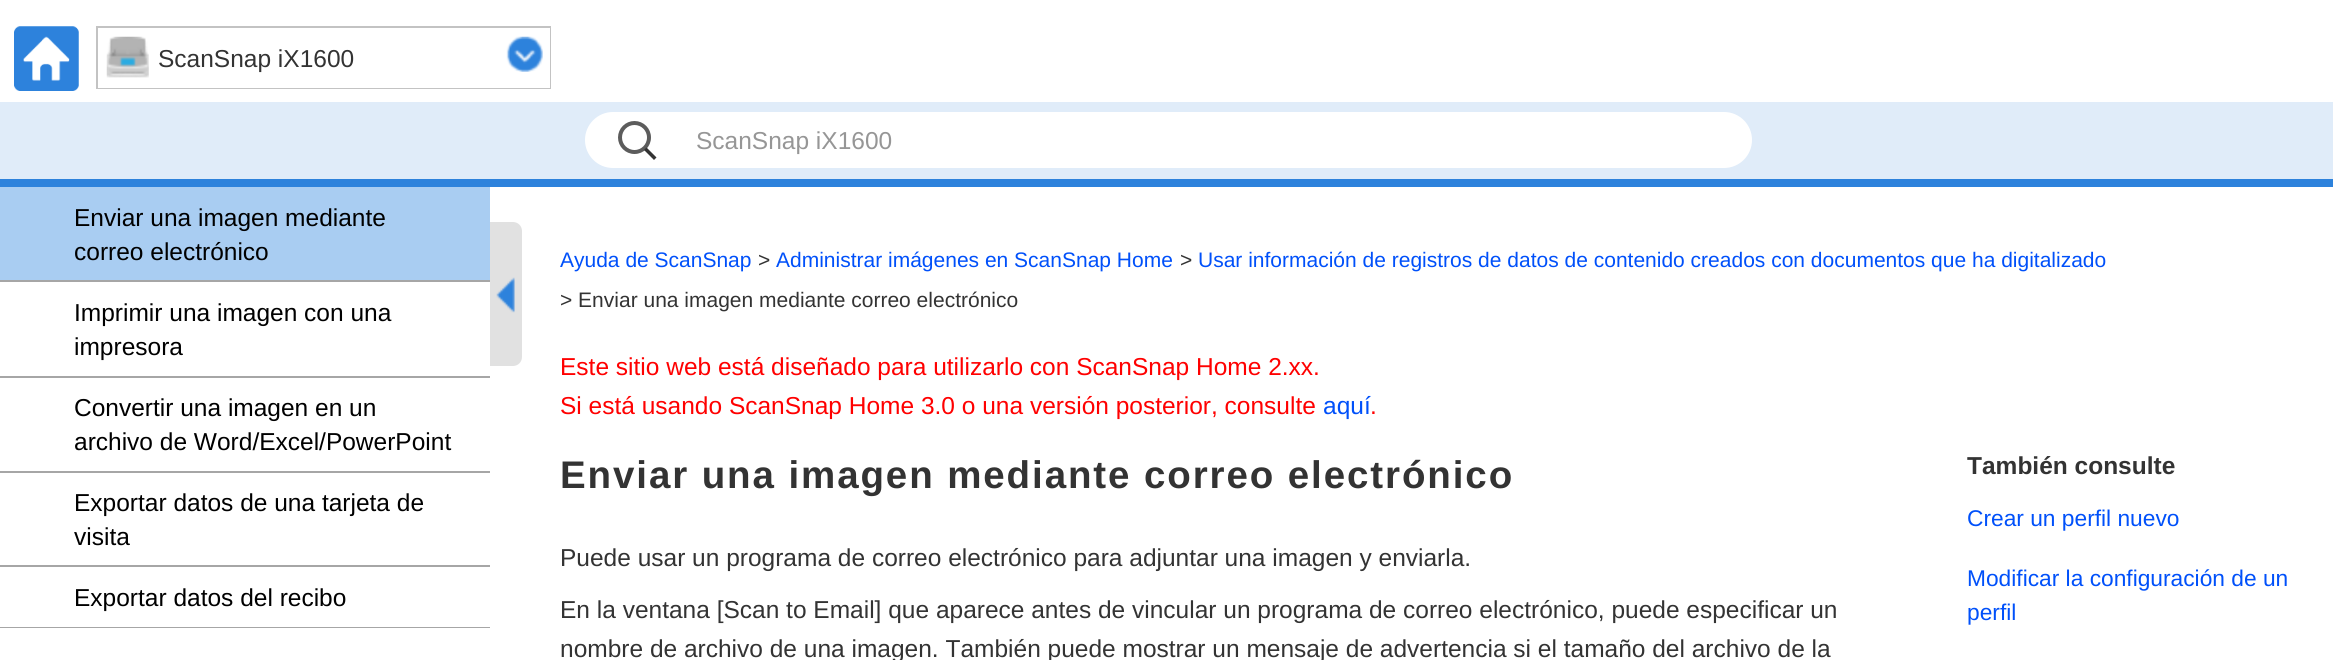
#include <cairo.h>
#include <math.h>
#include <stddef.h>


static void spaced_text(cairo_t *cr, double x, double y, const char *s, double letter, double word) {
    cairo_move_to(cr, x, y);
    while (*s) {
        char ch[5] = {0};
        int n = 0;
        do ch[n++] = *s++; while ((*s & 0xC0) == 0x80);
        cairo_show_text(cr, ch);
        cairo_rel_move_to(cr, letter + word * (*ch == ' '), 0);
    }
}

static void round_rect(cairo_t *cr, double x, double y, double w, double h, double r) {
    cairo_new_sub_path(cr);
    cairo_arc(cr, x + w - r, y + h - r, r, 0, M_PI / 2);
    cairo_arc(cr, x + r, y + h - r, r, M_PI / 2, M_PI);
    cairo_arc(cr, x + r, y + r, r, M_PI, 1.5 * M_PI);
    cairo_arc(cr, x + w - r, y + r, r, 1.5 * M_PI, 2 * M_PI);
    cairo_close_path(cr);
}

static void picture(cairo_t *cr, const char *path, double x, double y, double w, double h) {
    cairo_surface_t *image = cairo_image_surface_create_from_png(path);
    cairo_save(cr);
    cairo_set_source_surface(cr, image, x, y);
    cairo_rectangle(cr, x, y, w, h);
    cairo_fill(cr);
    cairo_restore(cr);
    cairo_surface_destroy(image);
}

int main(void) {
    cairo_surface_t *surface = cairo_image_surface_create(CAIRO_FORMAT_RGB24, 2333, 660);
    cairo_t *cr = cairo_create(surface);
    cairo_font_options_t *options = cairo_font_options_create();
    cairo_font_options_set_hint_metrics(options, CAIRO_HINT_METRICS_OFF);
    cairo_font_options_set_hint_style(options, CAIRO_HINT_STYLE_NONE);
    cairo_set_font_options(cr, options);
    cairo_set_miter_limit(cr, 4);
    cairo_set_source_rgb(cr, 1, 1, 1);
    cairo_paint(cr);
    cairo_rectangle(cr, 97, 27, 453, 61);
    cairo_set_source_rgb(cr, 0.765, 0.765, 0.765);
    cairo_stroke(cr);
    cairo_set_source_rgb(cr, 1, 1, 1);
    cairo_rectangle(cr, 98, 28, 452, 60);
    cairo_fill(cr);
    picture(cr, "img1.png", 106, 36, 43, 42);
    cairo_select_font_face(cr, "Liberation Sans", CAIRO_FONT_SLANT_NORMAL, CAIRO_FONT_WEIGHT_NORMAL);
    cairo_set_font_size(cr, 24.5);
    cairo_set_source_rgb(cr, 0.2, 0.2, 0.2);
    cairo_move_to(cr, 158, 67);
    cairo_show_text(cr, "ScanSnap iX1600");
    picture(cr, "img2.png", 506, 36, 37, 36);
    cairo_set_source_rgb(cr, 0.176, 0.51, 0.863);
    cairo_rectangle(cr, 0, 179, 2333, 8);
    cairo_fill(cr);
    picture(cr, "img3.png", 14, 26, 65, 65);
    cairo_set_source_rgb(cr, 0.878, 0.925, 0.976);
    cairo_rectangle(cr, 0, 102, 2333, 77);
    cairo_fill(cr);
    cairo_set_source_rgb(cr, 1, 1, 1);
    round_rect(cr, 585, 112, 1167, 56, 28);
    cairo_fill(cr);
    cairo_arc(cr, 634.5, 137.5, 14.5, 0, 2 * M_PI);
    cairo_set_source_rgb(cr, 0.361, 0.361, 0.361);
    cairo_set_line_width(cr, 4);
    cairo_stroke(cr);
    cairo_set_source_rgb(cr, 0.2, 0.2, 0.2);
    cairo_new_path(cr);
    cairo_move_to(cr, 646.5, 147.5);
    cairo_line_to(cr, 656.5, 157.5);
    cairo_line_to(cr, 654, 160);
    cairo_line_to(cr, 644, 150);
    cairo_close_path(cr);
    cairo_fill(cr);
    cairo_set_source_rgb(cr, 0.588, 0.588, 0.588);
    cairo_move_to(cr, 696, 149);
    cairo_show_text(cr, "ScanSnap iX1600");
    cairo_set_source_rgb(cr, 0.663, 0.804, 0.949);
    cairo_rectangle(cr, 0, 187, 490, 93);
    cairo_fill(cr);
    cairo_set_source_rgb(cr, 0.651, 0.651, 0.651);
    cairo_rectangle(cr, 0, 280, 490, 2);
    cairo_fill(cr);
    cairo_set_source_rgb(cr, 0, 0, 0);
    cairo_move_to(cr, 74, 226);
    cairo_show_text(cr, "Enviar una imagen mediante");
    cairo_move_to(cr, 74, 260);
    cairo_show_text(cr, "correo electrónico");
    cairo_set_source_rgb(cr, 0.651, 0.651, 0.651);
    cairo_rectangle(cr, 0, 376, 490, 2);
    cairo_fill(cr);
    cairo_set_source_rgb(cr, 0, 0, 0);
    cairo_move_to(cr, 74, 321);
    cairo_show_text(cr, "Imprimir una imagen con una");
    cairo_move_to(cr, 74, 355);
    cairo_show_text(cr, "impresora");
    cairo_set_source_rgb(cr, 0.651, 0.651, 0.651);
    cairo_rectangle(cr, 0, 471, 490, 2);
    cairo_fill(cr);
    cairo_set_source_rgb(cr, 0, 0, 0);
    cairo_move_to(cr, 74, 416);
    cairo_show_text(cr, "Convertir una imagen en un");
    cairo_move_to(cr, 74, 450);
    cairo_show_text(cr, "archivo de Word/Excel/PowerPoint");
    cairo_set_source_rgb(cr, 0.651, 0.651, 0.651);
    cairo_rectangle(cr, 0, 565, 490, 2);
    cairo_fill(cr);
    cairo_set_source_rgb(cr, 0, 0, 0);
    cairo_move_to(cr, 74, 511);
    cairo_show_text(cr, "Exportar datos de una tarjeta de");
    cairo_move_to(cr, 74, 545);
    cairo_show_text(cr, "visita");
    cairo_set_source_rgb(cr, 0.651, 0.651, 0.651);
    cairo_rectangle(cr, 0, 627, 490, 1);
    cairo_fill(cr);
    cairo_set_source_rgb(cr, 0, 0, 0);
    cairo_move_to(cr, 74, 606);
    cairo_show_text(cr, "Exportar datos del recibo");
    cairo_set_source_rgb(cr, 0.882, 0.882, 0.882);
    cairo_new_path(cr);
    cairo_move_to(cr, 490, 222);
    cairo_line_to(cr, 513, 222);
    cairo_curve_to(cr, 518, 222, 522, 226, 522, 231);
    cairo_line_to(cr, 522, 357);
    cairo_curve_to(cr, 522, 362, 518, 366, 513, 366);
    cairo_line_to(cr, 490, 366);
    cairo_close_path(cr);
    cairo_fill(cr);
    picture(cr, "img4.png", 496, 277, 19, 36);
    cairo_set_font_size(cr, 21);
    cairo_set_source_rgb(cr, 0, 0.314, 0.98);
    cairo_move_to(cr, 560, 267);
    cairo_show_text(cr, "Ayuda de ScanSnap");
    cairo_set_source_rgb(cr, 0.2, 0.2, 0.2);
    cairo_move_to(cr, 758, 267);
    cairo_show_text(cr, ">");
    cairo_set_source_rgb(cr, 0, 0.314, 0.98);
    cairo_move_to(cr, 776, 267);
    cairo_show_text(cr, "Administrar imágenes en ScanSnap Home");
    cairo_set_source_rgb(cr, 0.2, 0.2, 0.2);
    cairo_move_to(cr, 1180, 267);
    cairo_show_text(cr, ">");
    cairo_set_source_rgb(cr, 0, 0.314, 0.98);
    cairo_move_to(cr, 1198, 267);
    cairo_show_text(cr, "Usar información de registros de datos de contenido creados con documentos que ha digitalizado");
    cairo_set_source_rgb(cr, 0.2, 0.2, 0.2);
    cairo_move_to(cr, 560, 307);
    cairo_show_text(cr, "> Enviar una imagen mediante correo electrónico");
    cairo_set_font_size(cr, 24.5);
    cairo_set_source_rgb(cr, 1, 0, 0);
    cairo_move_to(cr, 560, 375);
    cairo_show_text(cr, "Este sitio web está diseñado para utilizarlo con ScanSnap Home 2.xx.");
    cairo_move_to(cr, 560, 414);
    cairo_show_text(cr, "Si está usando ScanSnap Home 3.0 o una versión posterior, consulte");
    cairo_set_source_rgb(cr, 0, 0.314, 0.98);
    cairo_move_to(cr, 1323, 414);
    cairo_show_text(cr, "aquí");
    cairo_set_source_rgb(cr, 1, 0, 0);
    cairo_move_to(cr, 1370, 414);
    cairo_show_text(cr, ".");
    cairo_select_font_face(cr, "Liberation Sans", CAIRO_FONT_SLANT_NORMAL, CAIRO_FONT_WEIGHT_BOLD);
    cairo_set_font_size(cr, 38.5);
    cairo_set_source_rgb(cr, 0.2, 0.2, 0.2);
    spaced_text(cr, 560, 488, "Enviar una imagen mediante correo electrónico", 1.9, 0);
    cairo_select_font_face(cr, "Liberation Sans", CAIRO_FONT_SLANT_NORMAL, CAIRO_FONT_WEIGHT_NORMAL);
    cairo_set_font_size(cr, 24.5);
    cairo_move_to(cr, 560, 566);
    cairo_show_text(cr, "Puede usar un programa de correo electrónico para adjuntar una imagen y enviarla.");
    cairo_move_to(cr, 560, 618);
    cairo_show_text(cr, "En la ventana [Scan to Email] que aparece antes de vincular un programa de correo electrónico, puede especificar un");
    cairo_move_to(cr, 560, 657);
    cairo_show_text(cr, "nombre de archivo de una imagen. También puede mostrar un mensaje de advertencia si el tamaño del archivo de la");
    cairo_select_font_face(cr, "Liberation Sans", CAIRO_FONT_SLANT_NORMAL, CAIRO_FONT_WEIGHT_BOLD);
    cairo_move_to(cr, 1967, 474);
    cairo_show_text(cr, "También consulte");
    cairo_select_font_face(cr, "Liberation Sans", CAIRO_FONT_SLANT_NORMAL, CAIRO_FONT_WEIGHT_NORMAL);
    cairo_set_font_size(cr, 22.75);
    cairo_set_source_rgb(cr, 0, 0.314, 0.98);
    cairo_move_to(cr, 1967, 526);
    cairo_show_text(cr, "Crear un perfil nuevo");
    cairo_move_to(cr, 1967, 586);
    cairo_show_text(cr, "Modificar la configuración de un");
    cairo_move_to(cr, 1967, 620);
    cairo_show_text(cr, "perfil");
    cairo_surface_write_to_png(surface, "page.png");
    cairo_font_options_destroy(options);
    cairo_destroy(cr);
    cairo_surface_destroy(surface);
    return 0;
}
